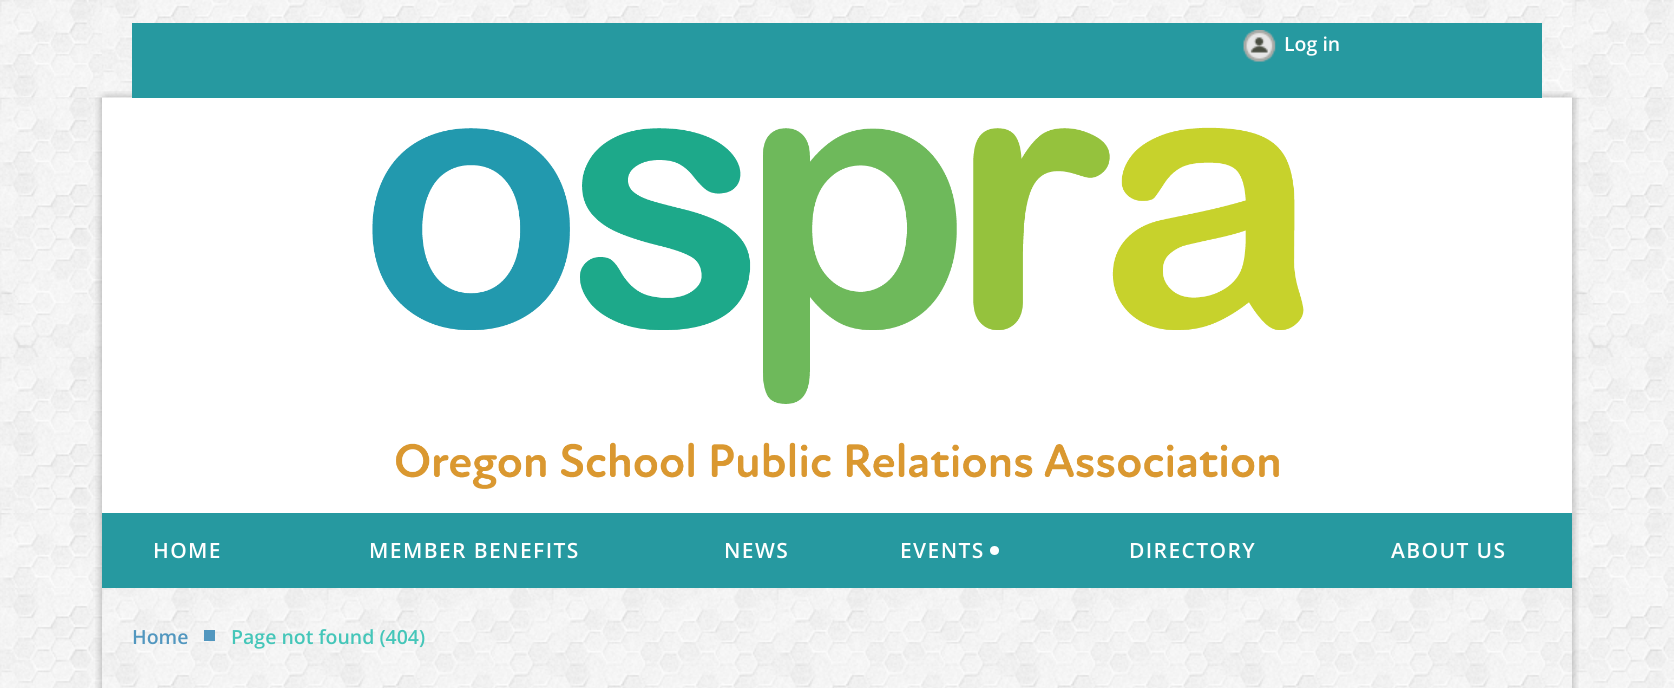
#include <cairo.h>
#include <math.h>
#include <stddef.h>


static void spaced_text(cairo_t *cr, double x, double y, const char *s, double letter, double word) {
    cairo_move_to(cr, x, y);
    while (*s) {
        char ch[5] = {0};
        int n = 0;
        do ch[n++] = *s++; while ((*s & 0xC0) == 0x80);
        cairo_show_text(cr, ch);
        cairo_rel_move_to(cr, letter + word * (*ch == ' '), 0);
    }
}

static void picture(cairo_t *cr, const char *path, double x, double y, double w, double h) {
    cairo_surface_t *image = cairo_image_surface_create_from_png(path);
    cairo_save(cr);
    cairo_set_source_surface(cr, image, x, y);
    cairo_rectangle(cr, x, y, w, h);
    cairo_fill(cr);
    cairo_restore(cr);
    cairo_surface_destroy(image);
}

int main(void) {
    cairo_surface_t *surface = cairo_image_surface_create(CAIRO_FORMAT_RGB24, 1674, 688);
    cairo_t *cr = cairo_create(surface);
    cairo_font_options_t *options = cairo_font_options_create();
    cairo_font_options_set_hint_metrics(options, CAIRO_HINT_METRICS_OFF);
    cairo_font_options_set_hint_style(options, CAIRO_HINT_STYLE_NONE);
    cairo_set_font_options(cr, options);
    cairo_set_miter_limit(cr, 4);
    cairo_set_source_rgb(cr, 1, 1, 1);
    cairo_paint(cr);
    picture(cr, "img1.png", 0, 0, 1674, 688);
    picture(cr, "img2.png", 84, 0, 1576, 1);
    picture(cr, "img3.png", 102, 0, 1470, 98);
    picture(cr, "img5.png", 97, 91, 1480, 7);
    picture(cr, "img6.png", 109, 91, 1456, 7);
    picture(cr, "img7.png", 0, 97, 1674, 416);
    picture(cr, "img8.png", 95, 97, 1484, 416);
    cairo_set_source_rgb(cr, 0.149, 0.6, 0.627);
    cairo_rectangle(cr, 132, 23, 1410, 75);
    cairo_fill(cr);
    picture(cr, "img4.png", 1243, 30, 33, 32);
    cairo_select_font_face(cr, "Open Sans SemiBold", CAIRO_FONT_SLANT_NORMAL, CAIRO_FONT_WEIGHT_NORMAL);
    cairo_set_font_size(cr, 19.5);
    cairo_set_source_rgb(cr, 1, 1, 1);
    cairo_move_to(cr, 1284, 51);
    cairo_show_text(cr, "Log in");
    cairo_rectangle(cr, 102, 98, 1470, 415);
    cairo_fill(cr);
    picture(cr, "img9.png", 372, 127, 932, 362);
    picture(cr, "img10.png", 0, 513, 1674, 75);
    picture(cr, "img11.png", 95, 513, 1484, 75);
    cairo_set_source_rgb(cr, 0.149, 0.6, 0.627);
    cairo_rectangle(cr, 102, 513, 1470, 75);
    cairo_fill(cr);
    cairo_set_font_size(cr, 21);
    cairo_set_source_rgb(cr, 1, 1, 1);
    spaced_text(cr, 153, 558, "HOME", 1.4, 0);
    spaced_text(cr, 369, 558, "MEMBER BENEFITS", 1.4, 0);
    spaced_text(cr, 724, 558, "NEWS", 1.4, 0);
    spaced_text(cr, 900, 558, "EVENTS", 1.4, 0);
    cairo_new_path(cr);
    cairo_arc(cr, 994.5, 550.5, 4.5, 0, 2 * M_PI);
    cairo_fill(cr);
    spaced_text(cr, 1129, 558, "DIRECTORY", 1.4, 0);
    spaced_text(cr, 1391, 558, "ABOUT US", 1.4, 0);
    picture(cr, "img12.png", 95, 588, 1484, 100);
    picture(cr, "img13.png", 102, 588, 1470, 100);
    cairo_set_font_size(cr, 19.5);
    cairo_set_source_rgb(cr, 0.322, 0.592, 0.749);
    cairo_move_to(cr, 132, 644);
    cairo_show_text(cr, "Home");
    cairo_rectangle(cr, 204, 630, 11, 11);
    cairo_fill(cr);
    cairo_set_source_rgb(cr, 0.271, 0.776, 0.725);
    cairo_move_to(cr, 231, 644);
    cairo_show_text(cr, "Page not found (404)");
    cairo_surface_write_to_png(surface, "page.png");
    cairo_font_options_destroy(options);
    cairo_destroy(cr);
    cairo_surface_destroy(surface);
    return 0;
}
